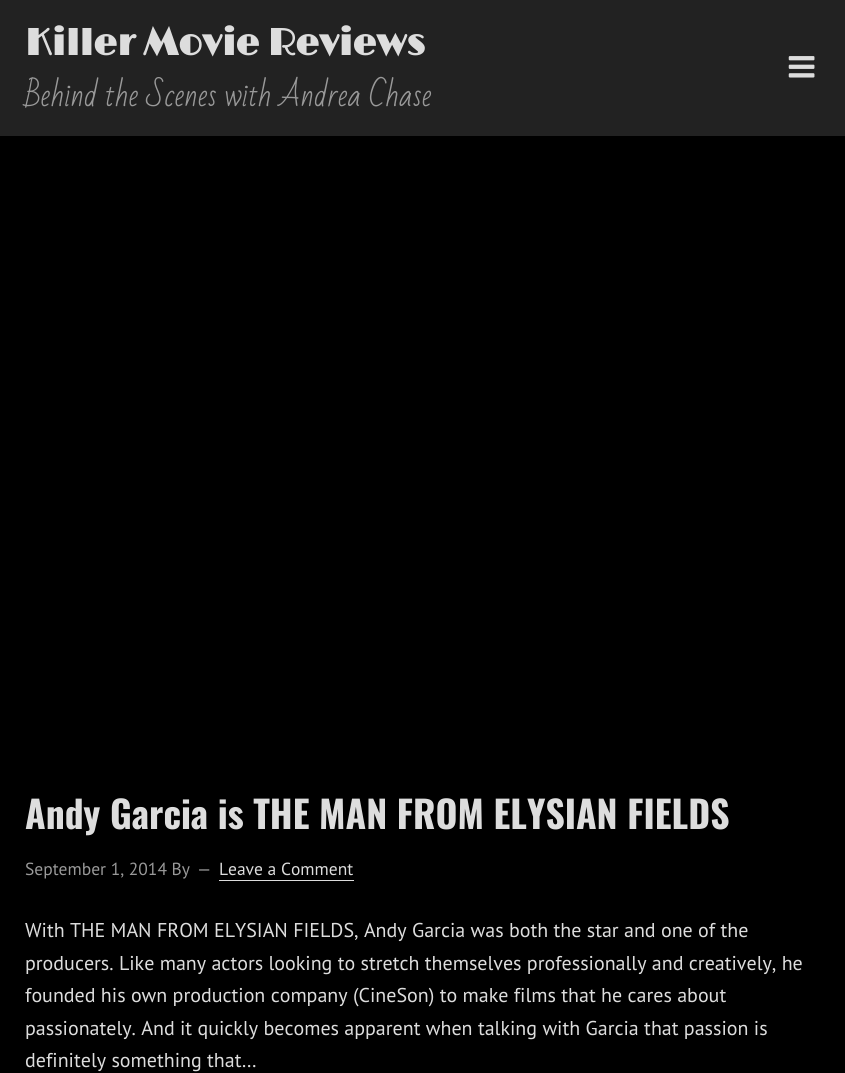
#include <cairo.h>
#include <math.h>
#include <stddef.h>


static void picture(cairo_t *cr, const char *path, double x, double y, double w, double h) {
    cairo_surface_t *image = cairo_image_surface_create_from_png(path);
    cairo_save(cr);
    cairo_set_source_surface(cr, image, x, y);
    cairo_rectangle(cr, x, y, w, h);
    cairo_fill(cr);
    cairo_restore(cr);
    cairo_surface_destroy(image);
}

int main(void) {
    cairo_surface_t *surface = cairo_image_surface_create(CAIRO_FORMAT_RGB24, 845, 1073);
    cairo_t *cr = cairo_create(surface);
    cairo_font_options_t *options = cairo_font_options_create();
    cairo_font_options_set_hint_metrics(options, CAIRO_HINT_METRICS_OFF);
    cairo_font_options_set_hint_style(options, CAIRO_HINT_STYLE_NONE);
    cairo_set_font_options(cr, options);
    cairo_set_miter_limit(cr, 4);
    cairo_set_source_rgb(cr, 0, 0, 0);
    cairo_paint(cr);
    cairo_set_source_rgb(cr, 0.133, 0.133, 0.133);
    cairo_rectangle(cr, 0, 0, 845, 136);
    cairo_fill(cr);
    cairo_select_font_face(cr, "Limelight", CAIRO_FONT_SLANT_NORMAL, CAIRO_FONT_WEIGHT_BOLD);
    cairo_set_font_size(cr, 37.5);
    cairo_set_source_rgb(cr, 0.867, 0.867, 0.867);
    cairo_move_to(cr, 25, 55);
    cairo_show_text(cr, "Killer Movie Reviews");
    cairo_select_font_face(cr, "Bad Script", CAIRO_FONT_SLANT_NORMAL, CAIRO_FONT_WEIGHT_NORMAL);
    cairo_set_font_size(cr, 30);
    cairo_set_source_rgb(cr, 0.6, 0.6, 0.6);
    cairo_move_to(cr, 25, 106);
    cairo_show_text(cr, "Behind the Scenes with Andrea Chase");
    picture(cr, "img1.png", 788, 56, 27, 22);
    cairo_select_font_face(cr, "Oswald", CAIRO_FONT_SLANT_NORMAL, CAIRO_FONT_WEIGHT_BOLD);
    cairo_set_font_size(cr, 37.5);
    cairo_set_source_rgb(cr, 0.867, 0.867, 0.867);
    cairo_move_to(cr, 25, 829);
    cairo_show_text(cr, "Andy Garcia is THE MAN FROM ELYSIAN FIELDS");
    cairo_select_font_face(cr, "PT Sans", CAIRO_FONT_SLANT_NORMAL, CAIRO_FONT_WEIGHT_NORMAL);
    cairo_set_font_size(cr, 17.5);
    cairo_set_source_rgb(cr, 0.6, 0.6, 0.6);
    cairo_move_to(cr, 25, 875);
    cairo_show_text(cr, "September 1, 2014 By");
    cairo_move_to(cr, 197, 875);
    cairo_show_text(cr, "—");
    cairo_set_source_rgb(cr, 0.867, 0.867, 0.867);
    cairo_move_to(cr, 219, 875);
    cairo_show_text(cr, "Leave a Comment");
    cairo_rectangle(cr, 219, 880, 135, 1);
    cairo_fill(cr);
    cairo_set_font_size(cr, 20);
    cairo_move_to(cr, 25, 937);
    cairo_show_text(cr, "With THE MAN FROM ELYSIAN FIELDS, Andy Garcia was both the star and one of the");
    cairo_move_to(cr, 25, 970);
    cairo_show_text(cr, "producers. Like many actors looking to stretch themselves professionally and creatively, he");
    cairo_move_to(cr, 25, 1002);
    cairo_show_text(cr, "founded his own production company (CineSon) to make films that he cares about");
    cairo_move_to(cr, 25, 1035);
    cairo_show_text(cr, "passionately. And it quickly becomes apparent when talking with Garcia that passion is");
    cairo_move_to(cr, 25, 1067);
    cairo_show_text(cr, "definitely something that…");
    cairo_surface_write_to_png(surface, "page.png");
    cairo_font_options_destroy(options);
    cairo_destroy(cr);
    cairo_surface_destroy(surface);
    return 0;
}
